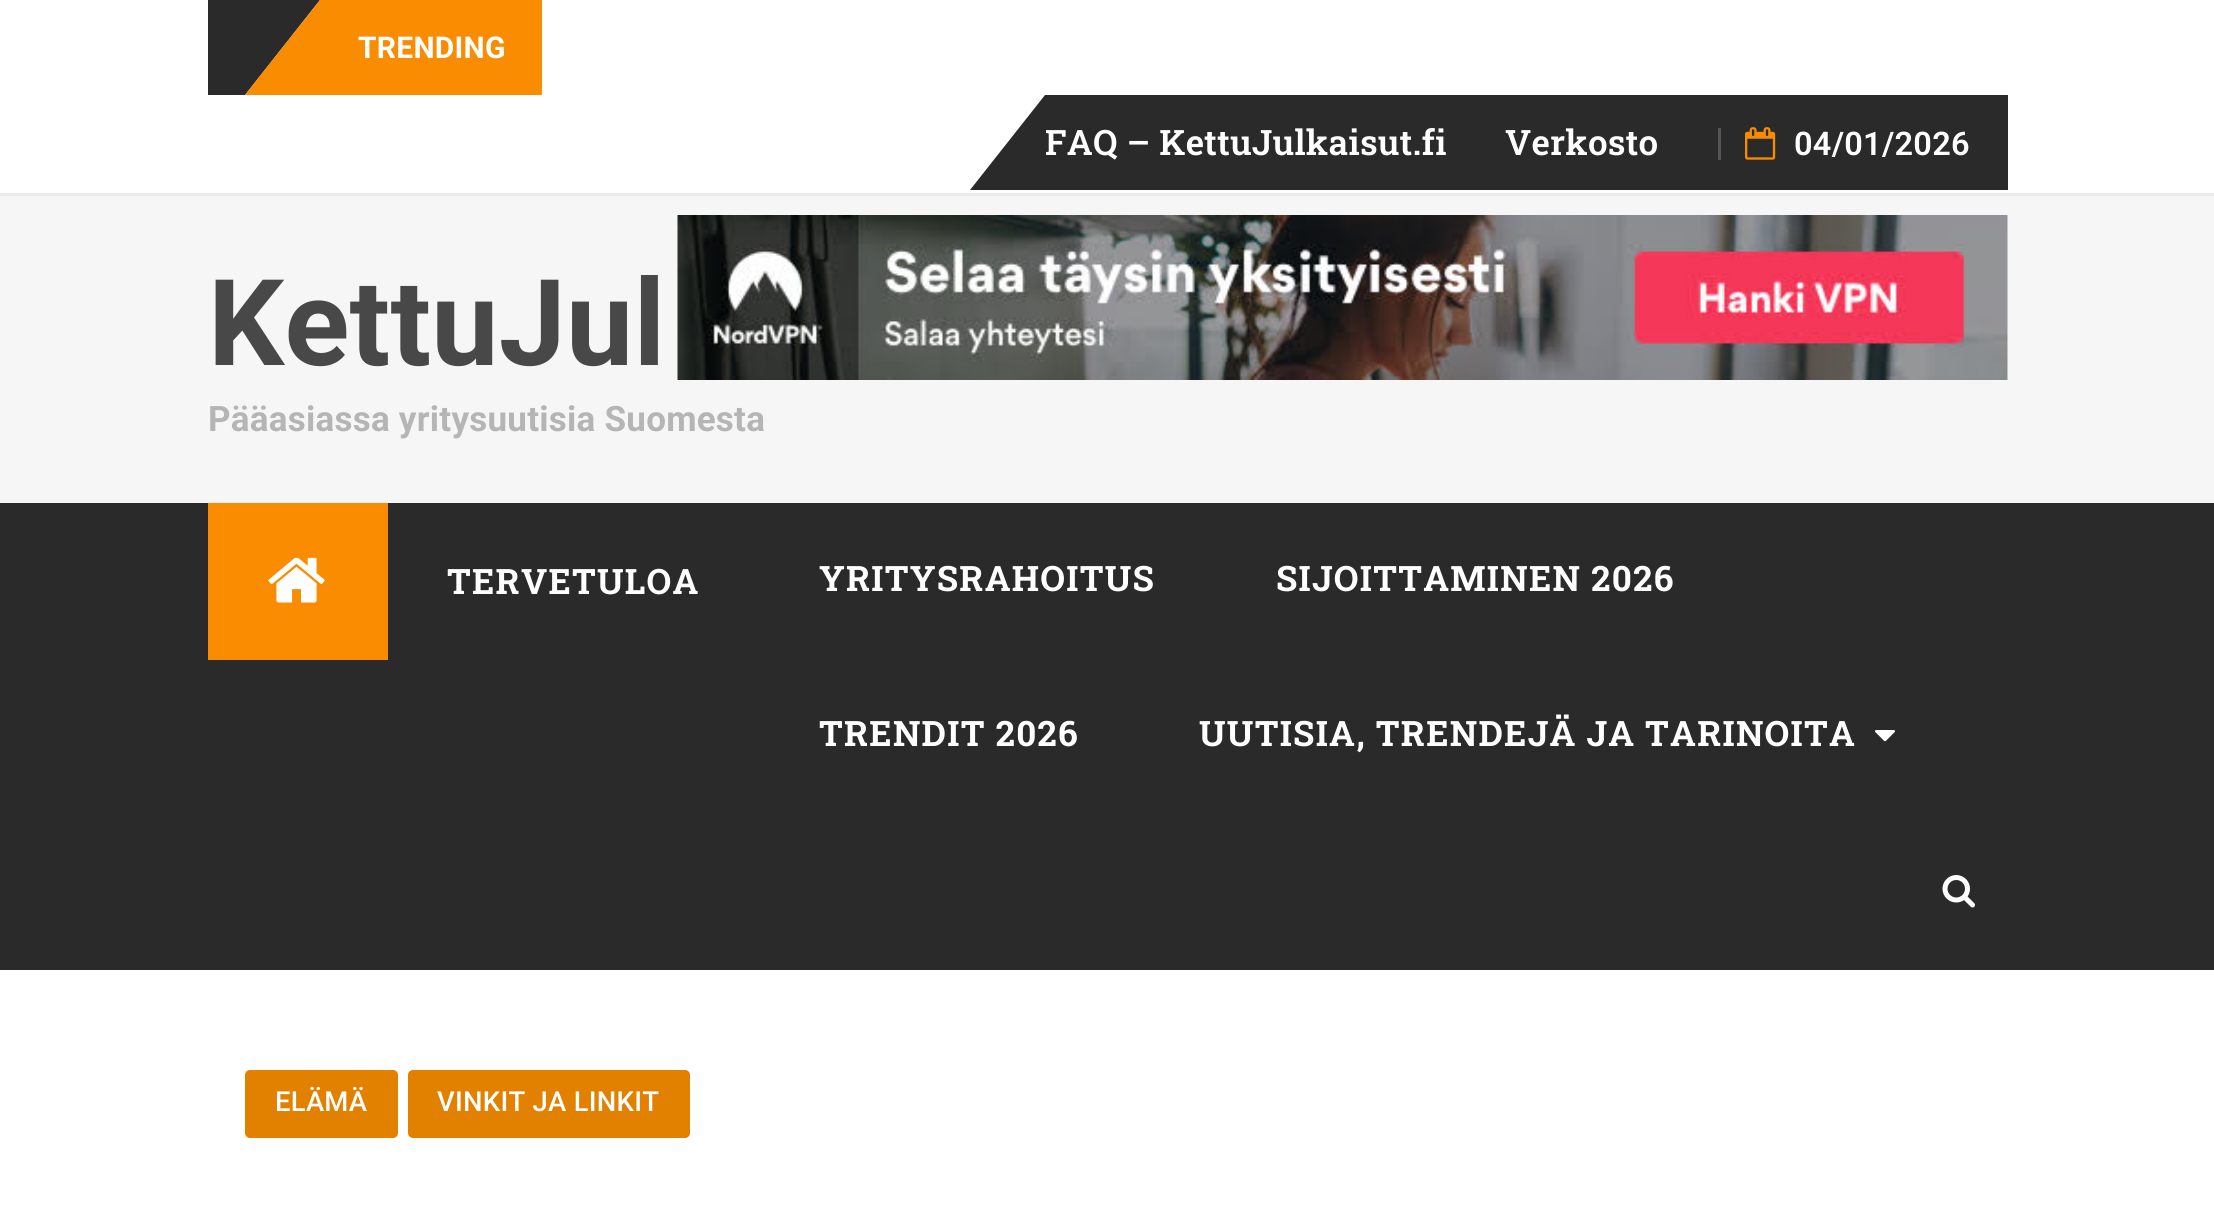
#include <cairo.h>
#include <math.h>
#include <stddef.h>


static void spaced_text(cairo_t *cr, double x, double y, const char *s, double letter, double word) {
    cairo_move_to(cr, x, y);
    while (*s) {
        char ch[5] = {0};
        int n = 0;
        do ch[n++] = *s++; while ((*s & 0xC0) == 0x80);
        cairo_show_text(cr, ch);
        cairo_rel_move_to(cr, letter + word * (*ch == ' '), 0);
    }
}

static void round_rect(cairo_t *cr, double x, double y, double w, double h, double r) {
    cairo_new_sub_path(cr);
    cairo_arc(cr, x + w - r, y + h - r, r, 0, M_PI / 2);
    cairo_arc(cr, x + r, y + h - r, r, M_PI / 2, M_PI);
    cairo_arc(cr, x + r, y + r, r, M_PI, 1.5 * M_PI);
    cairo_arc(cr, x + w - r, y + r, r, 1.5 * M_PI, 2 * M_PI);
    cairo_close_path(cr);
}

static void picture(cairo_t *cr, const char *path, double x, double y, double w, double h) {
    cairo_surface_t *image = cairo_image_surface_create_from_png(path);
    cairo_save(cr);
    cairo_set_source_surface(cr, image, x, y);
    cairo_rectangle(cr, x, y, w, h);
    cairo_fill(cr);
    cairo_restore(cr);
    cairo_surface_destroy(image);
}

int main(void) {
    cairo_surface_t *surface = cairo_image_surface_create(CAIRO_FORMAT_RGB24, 2214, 1224);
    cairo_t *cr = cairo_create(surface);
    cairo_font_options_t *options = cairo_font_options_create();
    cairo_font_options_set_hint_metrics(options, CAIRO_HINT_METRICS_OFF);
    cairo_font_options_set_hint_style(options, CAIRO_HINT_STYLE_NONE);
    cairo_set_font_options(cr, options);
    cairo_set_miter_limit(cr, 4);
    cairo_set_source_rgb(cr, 1, 1, 1);
    cairo_paint(cr);
    cairo_set_source_rgb(cr, 0.918, 0.918, 0.918);
    cairo_rectangle(cr, 0, 193, 2214, 3);
    cairo_fill(cr);
    cairo_set_source_rgb(cr, 0.165, 0.165, 0.165);
    cairo_new_path(cr);
    cairo_move_to(cr, 208, 0);
    cairo_line_to(cr, 320, 0);
    cairo_line_to(cr, 245, 95);
    cairo_line_to(cr, 208, 95);
    cairo_close_path(cr);
    cairo_fill(cr);
    cairo_set_source_rgb(cr, 0.973, 0.549, 0);
    cairo_new_path(cr);
    cairo_move_to(cr, 542, 95);
    cairo_line_to(cr, 245, 95);
    cairo_line_to(cr, 320, 0);
    cairo_line_to(cr, 542, 0);
    cairo_close_path(cr);
    cairo_fill(cr);
    cairo_select_font_face(cr, "Roboto", CAIRO_FONT_SLANT_NORMAL, CAIRO_FONT_WEIGHT_BOLD);
    cairo_set_font_size(cr, 30);
    cairo_set_source_rgb(cr, 1, 1, 1);
    spaced_text(cr, 358, 58, "TRENDING", 0.25, 0);
    cairo_set_source_rgb(cr, 0.165, 0.165, 0.165);
    cairo_new_path(cr);
    cairo_move_to(cr, 2008, 190);
    cairo_line_to(cr, 970, 190);
    cairo_line_to(cr, 1045, 95);
    cairo_line_to(cr, 2008, 95);
    cairo_close_path(cr);
    cairo_fill(cr);
    cairo_select_font_face(cr, "Roboto Slab SemiBold", CAIRO_FONT_SLANT_NORMAL, CAIRO_FONT_WEIGHT_NORMAL);
    cairo_set_font_size(cr, 35);
    cairo_set_source_rgb(cr, 1, 1, 1);
    spaced_text(cr, 1045, 155, "FAQ – KettuJulkaisut.fi", 0.25, 0);
    spaced_text(cr, 1505, 155, "Verkosto", 0.25, 0);
    cairo_set_source_rgb(cr, 0.337, 0.337, 0.337);
    cairo_rectangle(cr, 1718, 128, 3, 32);
    cairo_fill(cr);
    picture(cr, "img1.png", 1745, 127, 31, 33);
    cairo_select_font_face(cr, "Roboto SemiBold", CAIRO_FONT_SLANT_NORMAL, CAIRO_FONT_WEIGHT_NORMAL);
    cairo_set_font_size(cr, 32.5);
    cairo_set_source_rgb(cr, 1, 1, 1);
    spaced_text(cr, 1794, 155, "04/01/2026", 0.25, 0);
    cairo_set_source_rgb(cr, 0.961, 0.961, 0.961);
    cairo_rectangle(cr, 0, 196, 2214, 307);
    cairo_fill(cr);
    cairo_select_font_face(cr, "Roboto", CAIRO_FONT_SLANT_NORMAL, CAIRO_FONT_WEIGHT_BOLD);
    cairo_set_font_size(cr, 120);
    cairo_set_source_rgb(cr, 0.282, 0.282, 0.282);
    spaced_text(cr, 208, 365, "KettuJul", 0.25, 0);
    cairo_set_font_size(cr, 35);
    cairo_set_source_rgb(cr, 0.71, 0.71, 0.71);
    spaced_text(cr, 208, 431, "Pääasiassa yritysuutisia Suomesta", 0.25, 0);
    picture(cr, "img2.png", 677, 215, 1331, 165);
    cairo_set_source_rgb(cr, 0.165, 0.165, 0.165);
    cairo_rectangle(cr, 0, 503, 2214, 467);
    cairo_fill(cr);
    cairo_set_source_rgb(cr, 0.973, 0.549, 0);
    cairo_rectangle(cr, 208, 503, 180, 157);
    cairo_fill(cr);
    picture(cr, "img3.png", 268, 557, 57, 46);
    cairo_select_font_face(cr, "Roboto Slab", CAIRO_FONT_SLANT_NORMAL, CAIRO_FONT_WEIGHT_BOLD);
    cairo_set_source_rgb(cr, 1, 1, 1);
    spaced_text(cr, 447, 594, "TERVETULOA", 1.25, 0);
    spaced_text(cr, 819, 591, "YRITYSRAHOITUS", 1.25, 0);
    spaced_text(cr, 1276, 591, "SIJOITTAMINEN 2026", 1.25, 0);
    spaced_text(cr, 819, 746, "TRENDIT 2026", 1.25, 0);
    spaced_text(cr, 1199, 746, "UUTISIA, TRENDEJÄ JA TARINOITA", 1.25, 0);
    picture(cr, "img4.png", 1875, 730, 20, 12);
    picture(cr, "img5.png", 1942, 875, 33, 33);
    cairo_set_source_rgb(cr, 0.886, 0.502, 0);
    round_rect(cr, 245, 1070, 153, 68, 5);
    cairo_fill(cr);
    cairo_select_font_face(cr, "Roboto Medium", CAIRO_FONT_SLANT_NORMAL, CAIRO_FONT_WEIGHT_NORMAL);
    cairo_set_font_size(cr, 27.5);
    cairo_set_source_rgb(cr, 1, 1, 1);
    spaced_text(cr, 275, 1111, "ELÄMÄ", 0.25, 0);
    cairo_set_source_rgb(cr, 0.886, 0.502, 0);
    round_rect(cr, 408, 1070, 282, 68, 5);
    cairo_fill(cr);
    cairo_set_source_rgb(cr, 1, 1, 1);
    spaced_text(cr, 437, 1111, "VINKIT JA LINKIT", 0.25, 0);
    cairo_surface_write_to_png(surface, "page.png");
    cairo_font_options_destroy(options);
    cairo_destroy(cr);
    cairo_surface_destroy(surface);
    return 0;
}
